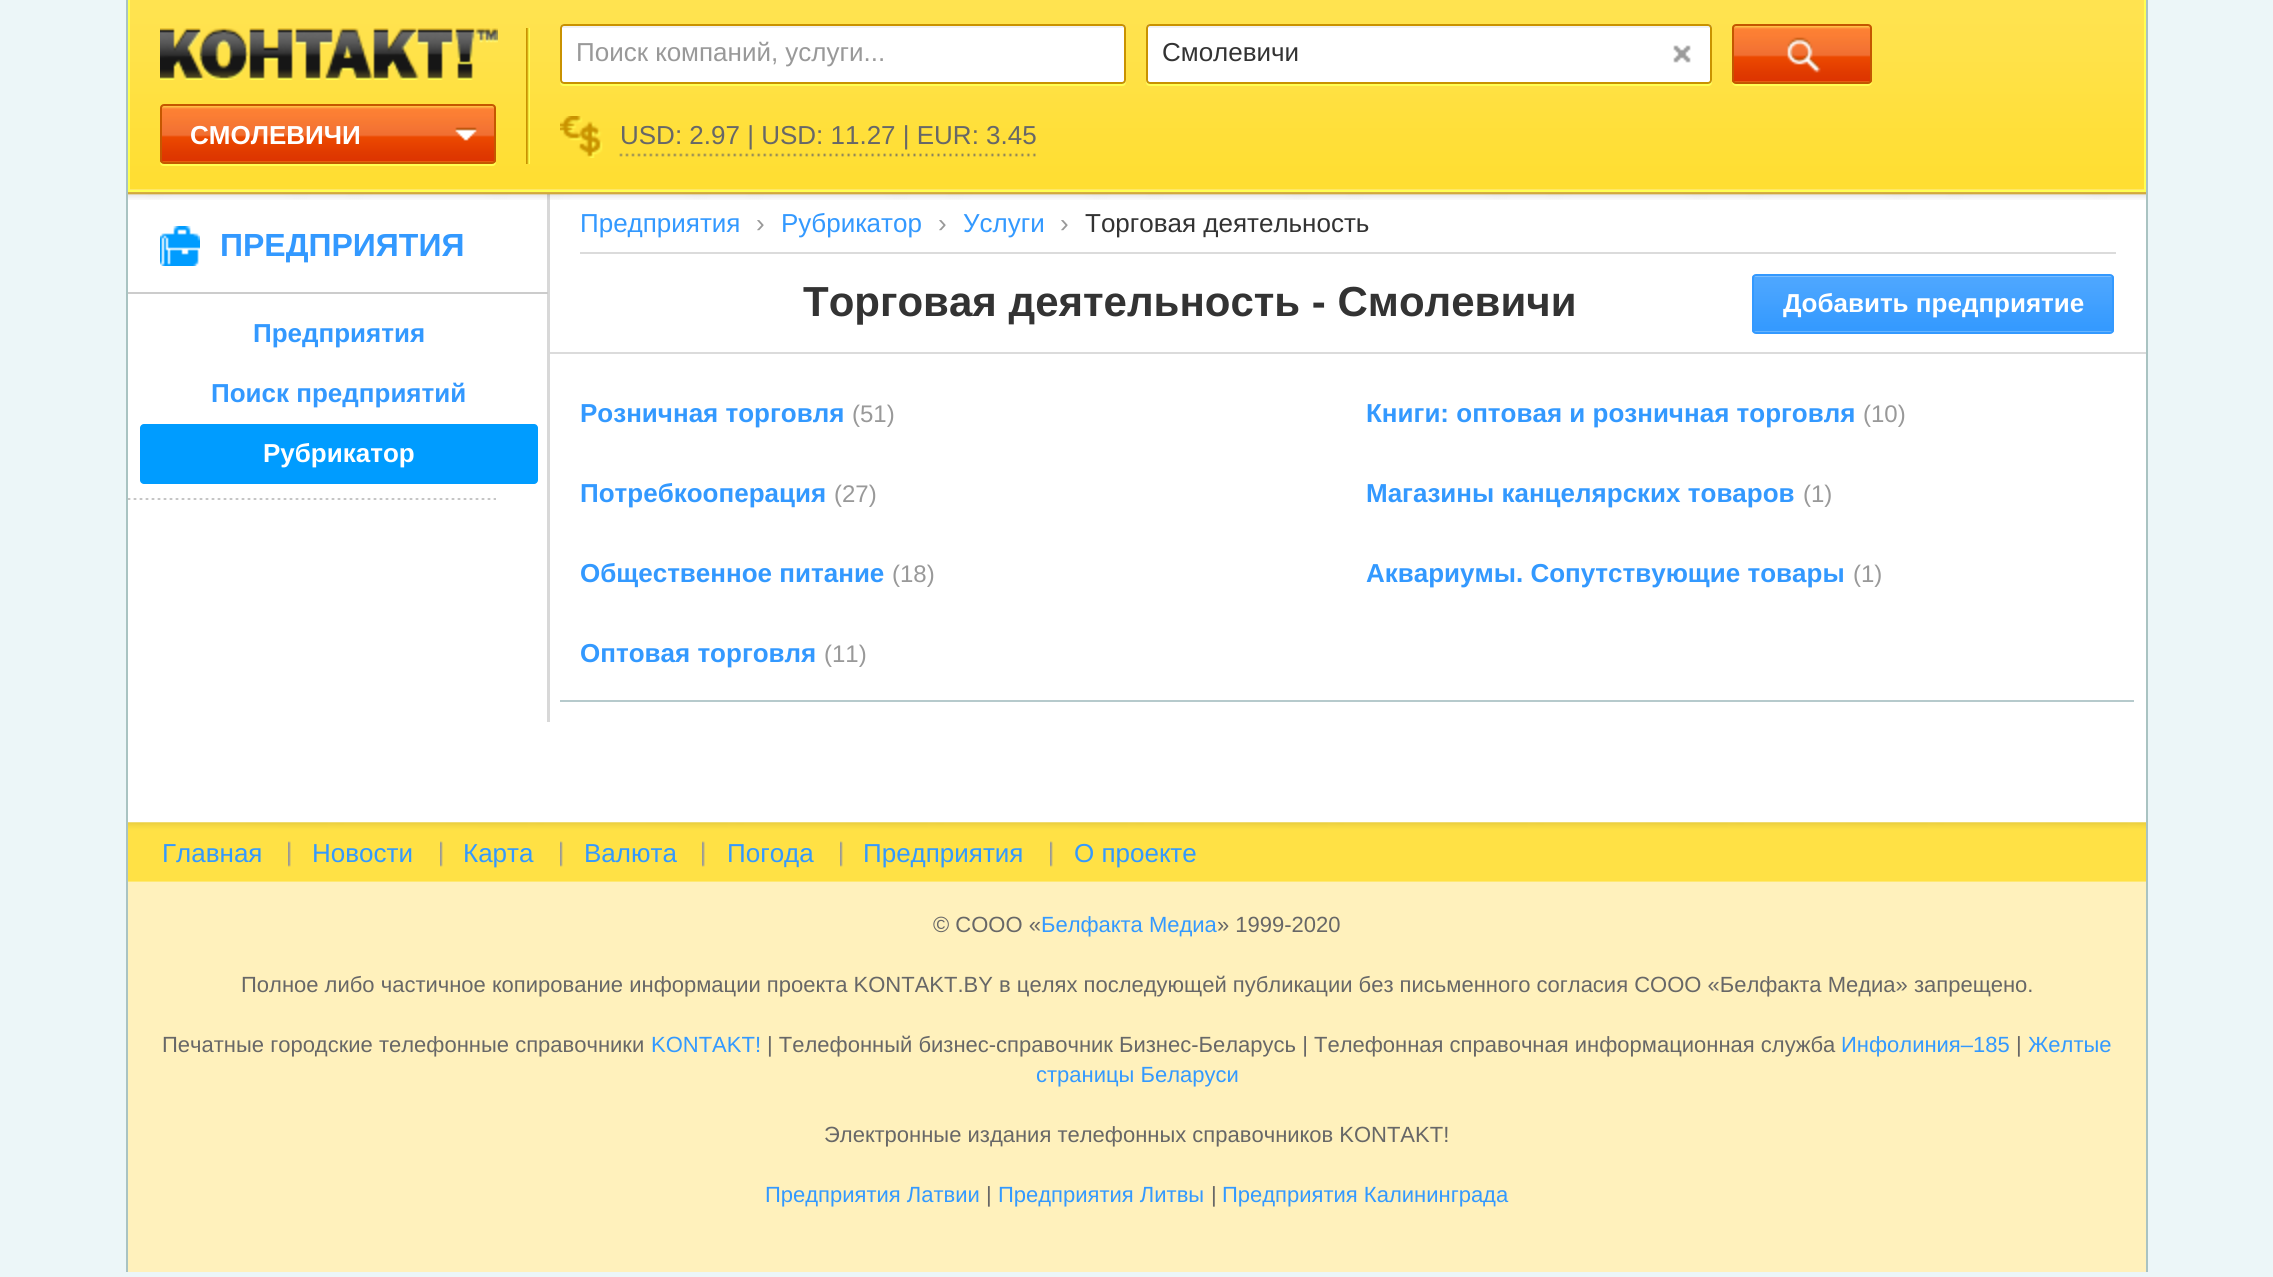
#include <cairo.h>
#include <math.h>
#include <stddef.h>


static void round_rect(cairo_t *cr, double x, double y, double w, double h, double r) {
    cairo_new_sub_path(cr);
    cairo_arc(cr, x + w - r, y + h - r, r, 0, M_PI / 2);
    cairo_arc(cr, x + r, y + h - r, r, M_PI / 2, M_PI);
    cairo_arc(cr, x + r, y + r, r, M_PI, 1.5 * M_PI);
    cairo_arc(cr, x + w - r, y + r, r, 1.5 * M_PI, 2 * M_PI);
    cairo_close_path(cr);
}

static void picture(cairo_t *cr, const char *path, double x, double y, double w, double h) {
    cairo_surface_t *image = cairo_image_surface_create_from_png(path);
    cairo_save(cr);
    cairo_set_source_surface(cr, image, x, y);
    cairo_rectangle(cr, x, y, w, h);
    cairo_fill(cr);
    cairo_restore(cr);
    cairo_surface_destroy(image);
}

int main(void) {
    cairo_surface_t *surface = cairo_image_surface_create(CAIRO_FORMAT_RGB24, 2273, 1277);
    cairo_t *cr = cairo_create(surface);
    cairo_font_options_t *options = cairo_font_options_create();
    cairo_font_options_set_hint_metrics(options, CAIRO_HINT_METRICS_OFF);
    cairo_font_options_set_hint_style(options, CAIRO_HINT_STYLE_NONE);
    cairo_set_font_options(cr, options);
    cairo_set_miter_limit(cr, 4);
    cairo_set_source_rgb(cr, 0.925, 0.961, 0.969);
    cairo_paint(cr);
    cairo_set_source_rgb(cr, 1, 1, 1);
    cairo_rectangle(cr, 128, 189, 2018, 693);
    cairo_fill(cr);
    cairo_set_source_rgb(cr, 0.663, 0.765, 0.761);
    cairo_rectangle(cr, 2146, 0, 2, 1272);
    cairo_fill(cr);
    cairo_rectangle(cr, 126, 0, 2, 1272);
    cairo_fill(cr);
    cairo_set_source_rgb(cr, 0.847, 0.847, 0.847);
    cairo_rectangle(cr, 547, 194, 3, 528);
    cairo_fill(cr);
    picture(cr, "img1.png", 128, 0, 2018, 200);
    cairo_set_source_rgb(cr, 1, 1, 0.322);
    cairo_rectangle(cr, 2144, 0, 2, 192);
    cairo_fill(cr);
    cairo_rectangle(cr, 128, 190, 2018, 2);
    cairo_fill(cr);
    cairo_rectangle(cr, 128, 0, 2, 192);
    cairo_fill(cr);
    cairo_set_source_rgb(cr, 1, 1, 0.329);
    cairo_new_path(cr);
    cairo_move_to(cr, 560, 80);
    cairo_curve_to(cr, 560, 83, 560, 86, 564, 86);
    cairo_line_to(cr, 1122, 86);
    cairo_curve_to(cr, 1126, 86, 1126, 83, 1126, 80);
    cairo_curve_to(cr, 1126, 82, 1124, 84, 1122, 84);
    cairo_line_to(cr, 564, 84);
    cairo_curve_to(cr, 562, 84, 560, 82, 560, 80);
    cairo_close_path(cr);
    cairo_fill(cr);
    cairo_set_source_rgb(cr, 1, 1, 1);
    round_rect(cr, 560, 24, 566, 60, 4);
    cairo_fill(cr);
    picture(cr, "img2.png", 560, 26, 566, 2);
    round_rect(cr, 561, 25, 564, 58, 3);
    cairo_set_source_rgb(cr, 0.788, 0.573, 0);
    cairo_stroke(cr);
    cairo_select_font_face(cr, "Liberation Sans", CAIRO_FONT_SLANT_NORMAL, CAIRO_FONT_WEIGHT_NORMAL);
    cairo_set_font_size(cr, 26);
    cairo_set_source_rgb(cr, 0.6, 0.6, 0.6);
    cairo_move_to(cr, 576, 61);
    cairo_show_text(cr, "Поиск компаний, услуги...");
    cairo_set_source_rgb(cr, 1, 1, 0.329);
    cairo_new_path(cr);
    cairo_move_to(cr, 1146, 80);
    cairo_curve_to(cr, 1146, 83, 1146, 86, 1150, 86);
    cairo_line_to(cr, 1708, 86);
    cairo_curve_to(cr, 1712, 86, 1712, 83, 1712, 80);
    cairo_curve_to(cr, 1712, 82, 1710, 84, 1708, 84);
    cairo_line_to(cr, 1150, 84);
    cairo_curve_to(cr, 1148, 84, 1146, 82, 1146, 80);
    cairo_close_path(cr);
    cairo_fill(cr);
    cairo_set_source_rgb(cr, 1, 1, 1);
    round_rect(cr, 1146, 24, 566, 60, 4);
    cairo_fill(cr);
    picture(cr, "img2.png", 1146, 26, 566, 2);
    round_rect(cr, 1147, 25, 564, 58, 3);
    cairo_set_source_rgb(cr, 0.788, 0.573, 0);
    cairo_stroke(cr);
    cairo_set_source_rgb(cr, 0.2, 0.2, 0.2);
    cairo_move_to(cr, 1162, 61);
    cairo_show_text(cr, "Смолевичи");
    picture(cr, "img3.png", 1673, 45, 18, 18);
    cairo_set_source_rgb(cr, 1, 1, 0.329);
    cairo_new_path(cr);
    cairo_move_to(cr, 1732, 80);
    cairo_line_to(cr, 1732, 82);
    cairo_curve_to(cr, 1732, 84, 1734, 86, 1736, 86);
    cairo_line_to(cr, 1868, 86);
    cairo_curve_to(cr, 1870, 86, 1872, 84, 1872, 82);
    cairo_line_to(cr, 1872, 80);
    cairo_curve_to(cr, 1872, 82, 1870, 84, 1868, 84);
    cairo_line_to(cr, 1736, 84);
    cairo_curve_to(cr, 1734, 84, 1732, 82, 1732, 80);
    cairo_close_path(cr);
    cairo_fill(cr);
    picture(cr, "img4.png", 1732, 25, 140, 58);
    round_rect(cr, 1733, 25, 138, 58, 3);
    cairo_set_source_rgb(cr, 0.769, 0.337, 0);
    cairo_stroke(cr);
    picture(cr, "img5.png", 1787, 37, 34, 36);
    picture(cr, "img6.png", 526, 28, 4, 136);
    picture(cr, "img7.png", 160, 28, 338, 52);
    cairo_set_source_rgb(cr, 1, 1, 0.322);
    cairo_new_path(cr);
    cairo_move_to(cr, 160, 160);
    cairo_curve_to(cr, 160, 163, 160, 166, 164, 166);
    cairo_line_to(cr, 492, 166);
    cairo_curve_to(cr, 496, 166, 496, 163, 496, 160);
    cairo_curve_to(cr, 496, 162, 494, 164, 492, 164);
    cairo_line_to(cr, 164, 164);
    cairo_curve_to(cr, 162, 164, 160, 162, 160, 160);
    cairo_close_path(cr);
    cairo_fill(cr);
    picture(cr, "img8.png", 160, 105, 336, 58);
    round_rect(cr, 161, 105, 334, 58, 3);
    cairo_set_source_rgb(cr, 0.773, 0.341, 0);
    cairo_stroke(cr);
    cairo_select_font_face(cr, "Liberation Sans", CAIRO_FONT_SLANT_NORMAL, CAIRO_FONT_WEIGHT_BOLD);
    cairo_set_source_rgb(cr, 1, 1, 1);
    cairo_move_to(cr, 190, 144);
    cairo_show_text(cr, "СМОЛЕВИЧИ");
    picture(cr, "img9.png", 455, 127, 22, 14);
    picture(cr, "img10.png", 560, 116, 476, 42);
    cairo_select_font_face(cr, "Liberation Sans", CAIRO_FONT_SLANT_NORMAL, CAIRO_FONT_WEIGHT_NORMAL);
    cairo_set_source_rgb(cr, 0.404, 0.404, 0.404);
    cairo_move_to(cr, 620, 144);
    cairo_show_text(cr, "USD: 2.97 | USD: 11.27 | EUR: 3.45");
    cairo_set_source_rgb(cr, 0.8, 0.8, 0.8);
    cairo_rectangle(cr, 128, 292, 420, 2);
    cairo_fill(cr);
    picture(cr, "img11.png", 160, 226, 40, 40);
    cairo_select_font_face(cr, "Liberation Sans", CAIRO_FONT_SLANT_NORMAL, CAIRO_FONT_WEIGHT_BOLD);
    cairo_set_font_size(cr, 32);
    cairo_set_source_rgb(cr, 0.2, 0.6, 1);
    cairo_move_to(cr, 220, 256);
    cairo_show_text(cr, "ПРЕДПРИЯТИЯ");
    cairo_set_font_size(cr, 26);
    cairo_move_to(cr, 253, 342);
    cairo_show_text(cr, "Предприятия");
    cairo_move_to(cr, 211, 402);
    cairo_show_text(cr, "Поиск предприятий");
    cairo_set_source_rgb(cr, 0, 0.612, 1);
    round_rect(cr, 140, 424, 398, 60, 4);
    cairo_fill(cr);
    cairo_set_source_rgb(cr, 1, 1, 1);
    cairo_move_to(cr, 263, 462);
    cairo_show_text(cr, "Рубрикатор");
    picture(cr, "img12.png", 128, 498, 368, 2);
    cairo_set_source_rgb(cr, 0.859, 0.859, 0.859);
    cairo_rectangle(cr, 580, 252, 1536, 2);
    cairo_fill(cr);
    cairo_select_font_face(cr, "Liberation Sans", CAIRO_FONT_SLANT_NORMAL, CAIRO_FONT_WEIGHT_NORMAL);
    cairo_set_source_rgb(cr, 0.2, 0.6, 1);
    cairo_move_to(cr, 580, 232);
    cairo_show_text(cr, "Предприятия");
    cairo_set_source_rgb(cr, 0.6, 0.6, 0.6);
    cairo_move_to(cr, 756, 232);
    cairo_show_text(cr, "›");
    cairo_set_source_rgb(cr, 0.2, 0.6, 1);
    cairo_move_to(cr, 781, 232);
    cairo_show_text(cr, "Рубрикатор");
    cairo_set_source_rgb(cr, 0.6, 0.6, 0.6);
    cairo_move_to(cr, 938, 232);
    cairo_show_text(cr, "›");
    cairo_set_source_rgb(cr, 0.2, 0.6, 1);
    cairo_move_to(cr, 963, 232);
    cairo_show_text(cr, "Услуги");
    cairo_set_source_rgb(cr, 0.6, 0.6, 0.6);
    cairo_move_to(cr, 1060, 232);
    cairo_show_text(cr, "›");
    cairo_set_source_rgb(cr, 0.2, 0.2, 0.2);
    cairo_move_to(cr, 1085, 232);
    cairo_show_text(cr, "Торговая деятельность");
    cairo_set_source_rgb(cr, 0.859, 0.859, 0.859);
    cairo_rectangle(cr, 550, 352, 1596, 2);
    cairo_fill(cr);
    cairo_select_font_face(cr, "Liberation Sans", CAIRO_FONT_SLANT_NORMAL, CAIRO_FONT_WEIGHT_BOLD);
    cairo_set_font_size(cr, 42);
    cairo_set_source_rgb(cr, 0.2, 0.2, 0.2);
    cairo_move_to(cr, 803, 316);
    cairo_show_text(cr, "Торговая деятельность - Смолевичи");
    picture(cr, "img13.png", 1752, 275, 362, 58);
    round_rect(cr, 1753, 275, 360, 58, 3);
    cairo_set_source_rgb(cr, 0.2, 0.6, 1);
    cairo_stroke(cr);
    cairo_set_font_size(cr, 26);
    cairo_set_source_rgb(cr, 1, 1, 1);
    cairo_move_to(cr, 1783, 312);
    cairo_show_text(cr, "Добавить предприятие");
    cairo_set_source_rgb(cr, 0.714, 0.792, 0.8);
    cairo_rectangle(cr, 560, 700, 1574, 2);
    cairo_fill(cr);
    cairo_set_source_rgb(cr, 0.2, 0.6, 1);
    cairo_move_to(cr, 580, 422);
    cairo_show_text(cr, "Розничная торговля");
    cairo_select_font_face(cr, "Liberation Sans", CAIRO_FONT_SLANT_NORMAL, CAIRO_FONT_WEIGHT_NORMAL);
    cairo_set_font_size(cr, 24);
    cairo_set_source_rgb(cr, 0.6, 0.6, 0.6);
    cairo_move_to(cr, 852, 422);
    cairo_show_text(cr, "(51)");
    cairo_select_font_face(cr, "Liberation Sans", CAIRO_FONT_SLANT_NORMAL, CAIRO_FONT_WEIGHT_BOLD);
    cairo_set_font_size(cr, 26);
    cairo_set_source_rgb(cr, 0.2, 0.6, 1);
    cairo_move_to(cr, 580, 502);
    cairo_show_text(cr, "Потребкооперация");
    cairo_select_font_face(cr, "Liberation Sans", CAIRO_FONT_SLANT_NORMAL, CAIRO_FONT_WEIGHT_NORMAL);
    cairo_set_font_size(cr, 24);
    cairo_set_source_rgb(cr, 0.6, 0.6, 0.6);
    cairo_move_to(cr, 834, 502);
    cairo_show_text(cr, "(27)");
    cairo_select_font_face(cr, "Liberation Sans", CAIRO_FONT_SLANT_NORMAL, CAIRO_FONT_WEIGHT_BOLD);
    cairo_set_font_size(cr, 26);
    cairo_set_source_rgb(cr, 0.2, 0.6, 1);
    cairo_move_to(cr, 580, 582);
    cairo_show_text(cr, "Общественное питание");
    cairo_select_font_face(cr, "Liberation Sans", CAIRO_FONT_SLANT_NORMAL, CAIRO_FONT_WEIGHT_NORMAL);
    cairo_set_font_size(cr, 24);
    cairo_set_source_rgb(cr, 0.6, 0.6, 0.6);
    cairo_move_to(cr, 892, 582);
    cairo_show_text(cr, "(18)");
    cairo_select_font_face(cr, "Liberation Sans", CAIRO_FONT_SLANT_NORMAL, CAIRO_FONT_WEIGHT_BOLD);
    cairo_set_font_size(cr, 26);
    cairo_set_source_rgb(cr, 0.2, 0.6, 1);
    cairo_move_to(cr, 580, 662);
    cairo_show_text(cr, "Оптовая торговля");
    cairo_select_font_face(cr, "Liberation Sans", CAIRO_FONT_SLANT_NORMAL, CAIRO_FONT_WEIGHT_NORMAL);
    cairo_set_font_size(cr, 24);
    cairo_set_source_rgb(cr, 0.6, 0.6, 0.6);
    cairo_move_to(cr, 824, 662);
    cairo_show_text(cr, "(11)");
    cairo_select_font_face(cr, "Liberation Sans", CAIRO_FONT_SLANT_NORMAL, CAIRO_FONT_WEIGHT_BOLD);
    cairo_set_font_size(cr, 26);
    cairo_set_source_rgb(cr, 0.2, 0.6, 1);
    cairo_move_to(cr, 1366, 422);
    cairo_show_text(cr, "Книги: оптовая и розничная торговля");
    cairo_select_font_face(cr, "Liberation Sans", CAIRO_FONT_SLANT_NORMAL, CAIRO_FONT_WEIGHT_NORMAL);
    cairo_set_font_size(cr, 24);
    cairo_set_source_rgb(cr, 0.6, 0.6, 0.6);
    cairo_move_to(cr, 1863, 422);
    cairo_show_text(cr, "(10)");
    cairo_select_font_face(cr, "Liberation Sans", CAIRO_FONT_SLANT_NORMAL, CAIRO_FONT_WEIGHT_BOLD);
    cairo_set_font_size(cr, 26);
    cairo_set_source_rgb(cr, 0.2, 0.6, 1);
    cairo_move_to(cr, 1366, 502);
    cairo_show_text(cr, "Магазины канцелярских товаров");
    cairo_select_font_face(cr, "Liberation Sans", CAIRO_FONT_SLANT_NORMAL, CAIRO_FONT_WEIGHT_NORMAL);
    cairo_set_font_size(cr, 24);
    cairo_set_source_rgb(cr, 0.6, 0.6, 0.6);
    cairo_move_to(cr, 1803, 502);
    cairo_show_text(cr, "(1)");
    cairo_select_font_face(cr, "Liberation Sans", CAIRO_FONT_SLANT_NORMAL, CAIRO_FONT_WEIGHT_BOLD);
    cairo_set_font_size(cr, 26);
    cairo_set_source_rgb(cr, 0.2, 0.6, 1);
    cairo_move_to(cr, 1366, 582);
    cairo_show_text(cr, "Аквариумы. Сопутствующие товары");
    cairo_select_font_face(cr, "Liberation Sans", CAIRO_FONT_SLANT_NORMAL, CAIRO_FONT_WEIGHT_NORMAL);
    cairo_set_font_size(cr, 24);
    cairo_set_source_rgb(cr, 0.6, 0.6, 0.6);
    cairo_move_to(cr, 1853, 582);
    cairo_show_text(cr, "(1)");
    picture(cr, "img14.png", 128, 822, 2018, 60);
    cairo_set_font_size(cr, 26);
    cairo_set_source_rgb(cr, 0.2, 0.6, 1);
    cairo_move_to(cr, 162, 862);
    cairo_show_text(cr, "Главная");
    picture(cr, "img15.png", 288, 841, 3, 26);
    cairo_move_to(cr, 312, 862);
    cairo_show_text(cr, "Новости");
    picture(cr, "img16.png", 440, 841, 3, 26);
    cairo_move_to(cr, 463, 862);
    cairo_show_text(cr, "Карта");
    picture(cr, "img16.png", 560, 841, 3, 26);
    cairo_move_to(cr, 584, 862);
    cairo_show_text(cr, "Валюта");
    picture(cr, "img15.png", 702, 841, 3, 26);
    cairo_move_to(cr, 727, 862);
    cairo_show_text(cr, "Погода");
    picture(cr, "img16.png", 840, 841, 3, 26);
    cairo_move_to(cr, 863, 862);
    cairo_show_text(cr, "Предприятия");
    picture(cr, "img16.png", 1050, 841, 3, 26);
    cairo_move_to(cr, 1074, 862);
    cairo_show_text(cr, "О проекте");
    cairo_set_source_rgb(cr, 1, 0.945, 0.737);
    cairo_rectangle(cr, 128, 882, 2018, 390);
    cairo_fill(cr);
    cairo_set_font_size(cr, 22);
    cairo_set_source_rgb(cr, 0.404, 0.404, 0.404);
    cairo_move_to(cr, 933, 932);
    cairo_show_text(cr, "© СООО «");
    cairo_set_source_rgb(cr, 0.2, 0.6, 1);
    cairo_move_to(cr, 1041, 932);
    cairo_show_text(cr, "Белфакта Медиа");
    cairo_set_source_rgb(cr, 0.404, 0.404, 0.404);
    cairo_move_to(cr, 1217, 932);
    cairo_show_text(cr, "» 1999-2020");
    cairo_move_to(cr, 241, 992);
    cairo_show_text(cr, "Полное либо частичное копирование информации проекта KONTAKT.BY в целях последующей публикации без письменного согласия СООО «Белфакта Медиа» запрещено.");
    cairo_move_to(cr, 162, 1052);
    cairo_show_text(cr, "Печатные городские телефонные справочники");
    cairo_set_source_rgb(cr, 0.2, 0.6, 1);
    cairo_move_to(cr, 651, 1052);
    cairo_show_text(cr, "KONTAKT!");
    cairo_set_source_rgb(cr, 0.404, 0.404, 0.404);
    cairo_move_to(cr, 767, 1052);
    cairo_show_text(cr, "| Телефонный бизнес-справочник Бизнес-Беларусь | Телефонная справочная информационная служба");
    cairo_set_source_rgb(cr, 0.2, 0.6, 1);
    cairo_move_to(cr, 1841, 1052);
    cairo_show_text(cr, "Инфолиния–185");
    cairo_set_source_rgb(cr, 0.404, 0.404, 0.404);
    cairo_move_to(cr, 2016, 1052);
    cairo_show_text(cr, "|");
    cairo_set_source_rgb(cr, 0.2, 0.6, 1);
    cairo_move_to(cr, 2028, 1052);
    cairo_show_text(cr, "Желтые");
    cairo_move_to(cr, 1036, 1082);
    cairo_show_text(cr, "страницы Беларуси");
    cairo_set_source_rgb(cr, 0.404, 0.404, 0.404);
    cairo_move_to(cr, 824, 1142);
    cairo_show_text(cr, "Электронные издания телефонных справочников KONTAKT!");
    cairo_set_source_rgb(cr, 0.2, 0.6, 1);
    cairo_move_to(cr, 765, 1202);
    cairo_show_text(cr, "Предприятия Латвии");
    cairo_set_source_rgb(cr, 0.404, 0.404, 0.404);
    cairo_move_to(cr, 986, 1202);
    cairo_show_text(cr, "|");
    cairo_set_source_rgb(cr, 0.2, 0.6, 1);
    cairo_move_to(cr, 998, 1202);
    cairo_show_text(cr, "Предприятия Литвы");
    cairo_set_source_rgb(cr, 0.404, 0.404, 0.404);
    cairo_move_to(cr, 1211, 1202);
    cairo_show_text(cr, "|");
    cairo_set_source_rgb(cr, 0.2, 0.6, 1);
    cairo_move_to(cr, 1222, 1202);
    cairo_show_text(cr, "Предприятия Калининграда");
    cairo_surface_write_to_png(surface, "page.png");
    cairo_font_options_destroy(options);
    cairo_destroy(cr);
    cairo_surface_destroy(surface);
    return 0;
}
